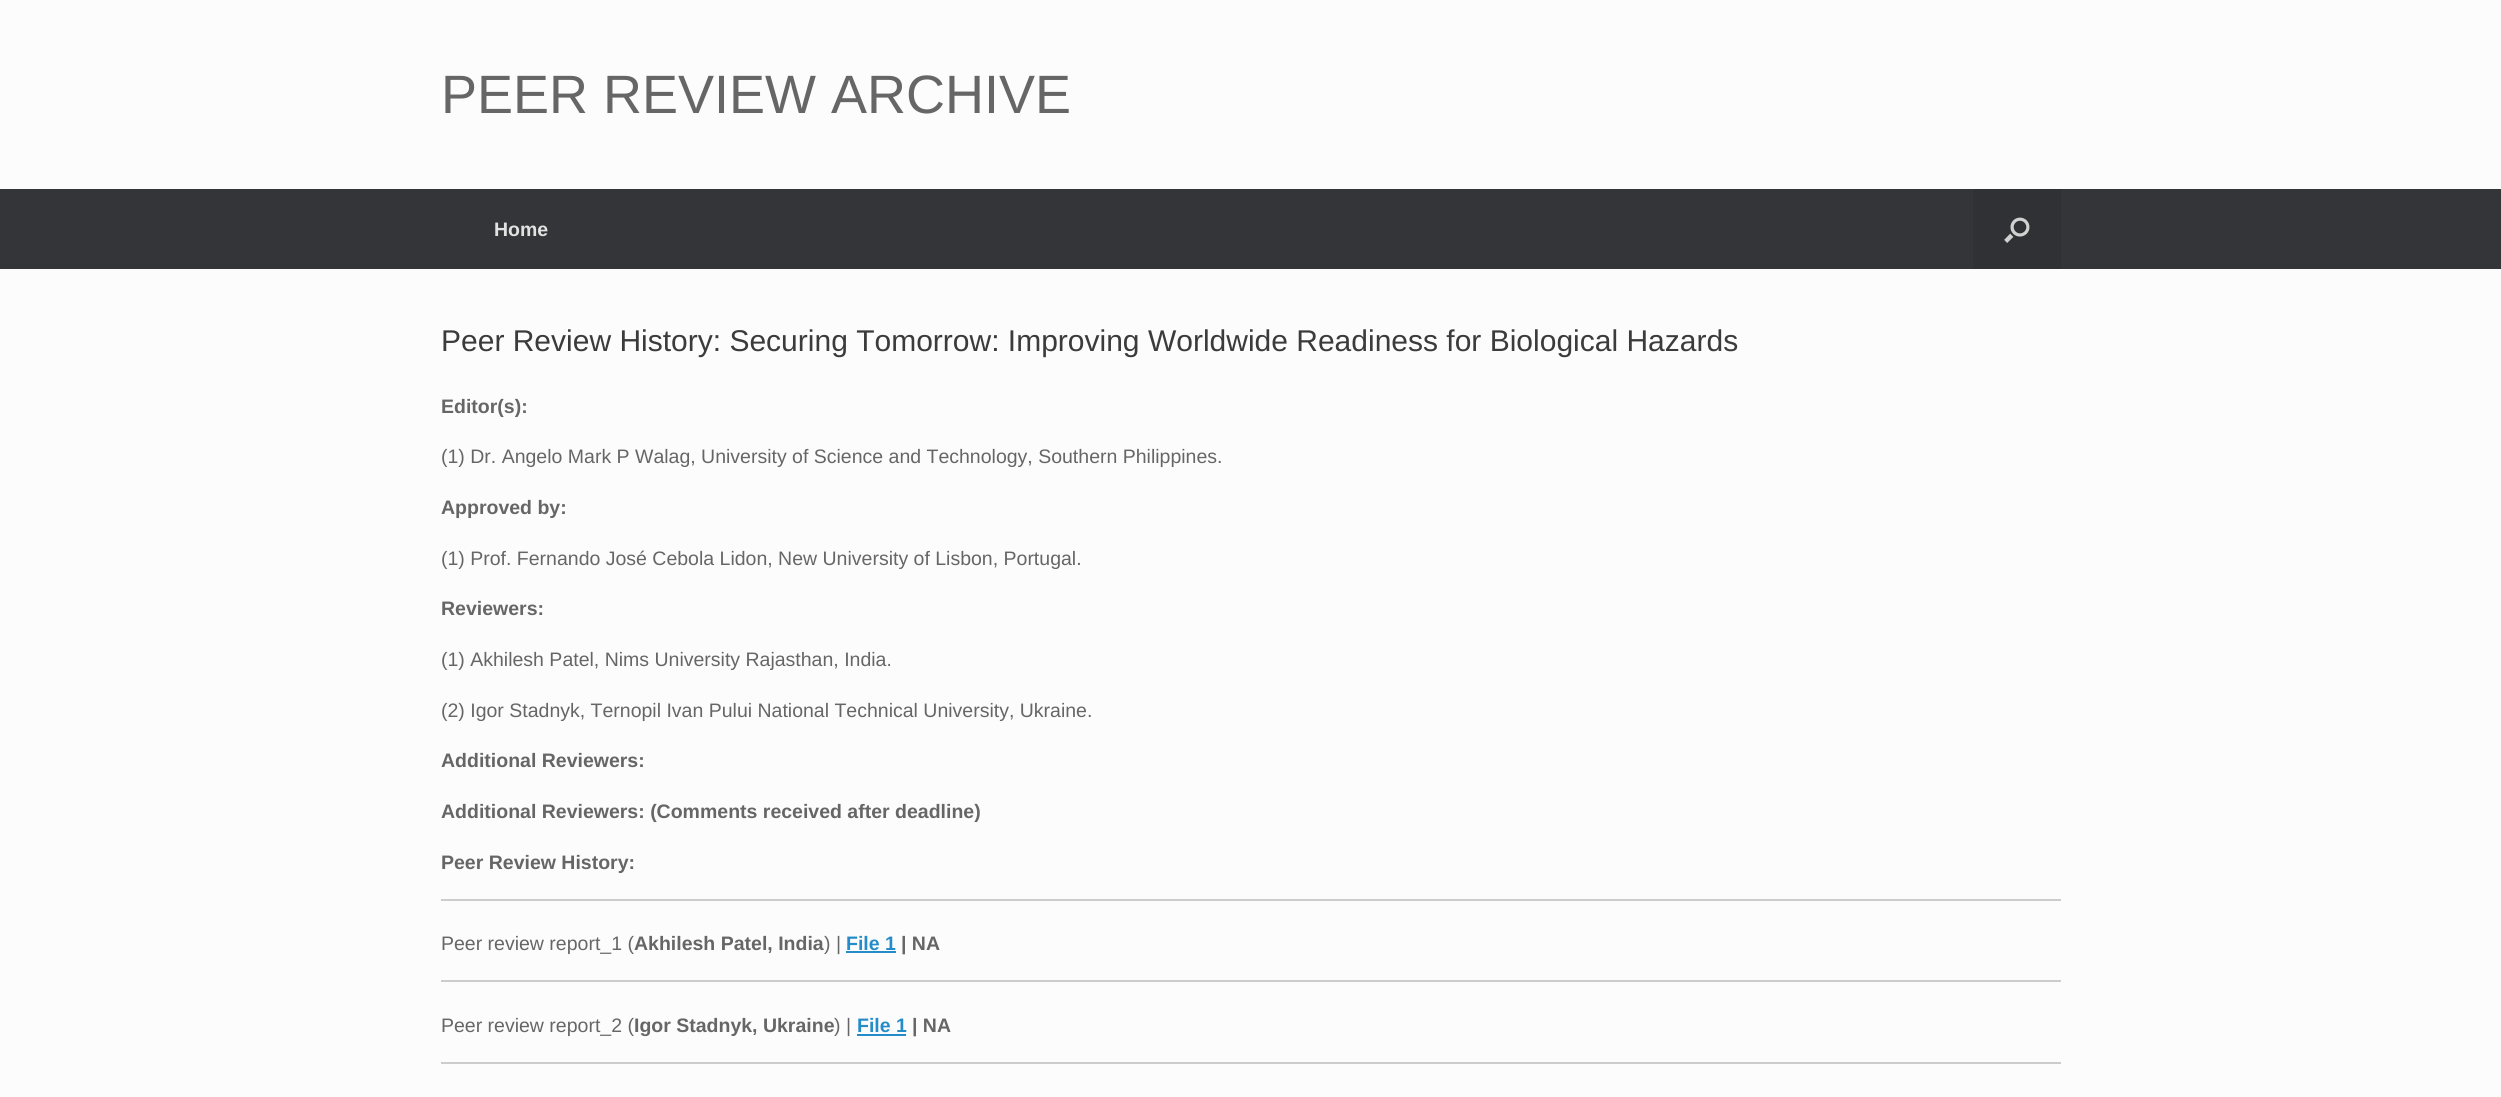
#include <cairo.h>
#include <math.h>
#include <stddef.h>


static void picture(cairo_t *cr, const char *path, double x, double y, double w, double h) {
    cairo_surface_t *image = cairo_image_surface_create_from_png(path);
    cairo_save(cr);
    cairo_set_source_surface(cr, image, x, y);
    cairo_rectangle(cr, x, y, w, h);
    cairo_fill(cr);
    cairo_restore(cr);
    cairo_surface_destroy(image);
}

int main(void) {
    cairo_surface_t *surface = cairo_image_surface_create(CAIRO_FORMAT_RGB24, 2501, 1097);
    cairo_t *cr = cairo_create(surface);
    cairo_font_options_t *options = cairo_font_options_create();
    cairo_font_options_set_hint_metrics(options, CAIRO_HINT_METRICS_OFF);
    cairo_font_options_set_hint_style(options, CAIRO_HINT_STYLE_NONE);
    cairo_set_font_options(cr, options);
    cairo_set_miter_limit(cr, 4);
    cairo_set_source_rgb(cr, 0.988, 0.988, 0.988);
    cairo_paint(cr);
    cairo_select_font_face(cr, "Liberation Sans", CAIRO_FONT_SLANT_NORMAL, CAIRO_FONT_WEIGHT_NORMAL);
    cairo_set_font_size(cr, 54);
    cairo_set_source_rgb(cr, 0.4, 0.4, 0.4);
    cairo_move_to(cr, 441, 113);
    cairo_show_text(cr, "PEER REVIEW ARCHIVE");
    cairo_set_source_rgb(cr, 0.204, 0.208, 0.22);
    cairo_rectangle(cr, 0, 189, 2501, 80);
    cairo_fill(cr);
    cairo_select_font_face(cr, "Liberation Sans", CAIRO_FONT_SLANT_NORMAL, CAIRO_FONT_WEIGHT_BOLD);
    cairo_set_font_size(cr, 19.5);
    cairo_set_source_rgb(cr, 0.886, 0.886, 0.886);
    cairo_move_to(cr, 494, 236);
    cairo_show_text(cr, "Home");
    cairo_set_source_rgb(cr, 0.188, 0.192, 0.204);
    cairo_rectangle(cr, 1973, 189, 88, 80);
    cairo_fill(cr);
    picture(cr, "img1.png", 2004, 217, 26, 26);
    cairo_select_font_face(cr, "Liberation Sans", CAIRO_FONT_SLANT_NORMAL, CAIRO_FONT_WEIGHT_NORMAL);
    cairo_set_font_size(cr, 30);
    cairo_set_source_rgb(cr, 0.231, 0.231, 0.231);
    cairo_move_to(cr, 441, 351);
    cairo_show_text(cr, "Peer Review History: Securing Tomorrow: Improving Worldwide Readiness for Biological Hazards");
    cairo_select_font_face(cr, "Liberation Sans", CAIRO_FONT_SLANT_NORMAL, CAIRO_FONT_WEIGHT_BOLD);
    cairo_set_font_size(cr, 19.5);
    cairo_set_source_rgb(cr, 0.4, 0.4, 0.4);
    cairo_move_to(cr, 441, 413);
    cairo_show_text(cr, "Editor(s):");
    cairo_select_font_face(cr, "Liberation Sans", CAIRO_FONT_SLANT_NORMAL, CAIRO_FONT_WEIGHT_NORMAL);
    cairo_move_to(cr, 441, 463);
    cairo_show_text(cr, "(1) Dr. Angelo Mark P Walag, University of Science and Technology, Southern Philippines.");
    cairo_select_font_face(cr, "Liberation Sans", CAIRO_FONT_SLANT_NORMAL, CAIRO_FONT_WEIGHT_BOLD);
    cairo_move_to(cr, 441, 514);
    cairo_show_text(cr, "Approved by:");
    cairo_select_font_face(cr, "Liberation Sans", CAIRO_FONT_SLANT_NORMAL, CAIRO_FONT_WEIGHT_NORMAL);
    cairo_move_to(cr, 441, 565);
    cairo_show_text(cr, "(1) Prof. Fernando José Cebola Lidon, New University of Lisbon, Portugal.");
    cairo_select_font_face(cr, "Liberation Sans", CAIRO_FONT_SLANT_NORMAL, CAIRO_FONT_WEIGHT_BOLD);
    cairo_move_to(cr, 441, 615);
    cairo_show_text(cr, "Reviewers:");
    cairo_select_font_face(cr, "Liberation Sans", CAIRO_FONT_SLANT_NORMAL, CAIRO_FONT_WEIGHT_NORMAL);
    cairo_move_to(cr, 441, 666);
    cairo_show_text(cr, "(1) Akhilesh Patel, Nims University Rajasthan, India.");
    cairo_move_to(cr, 441, 717);
    cairo_show_text(cr, "(2) Igor Stadnyk, Ternopil Ivan Pului National Technical University, Ukraine.");
    cairo_select_font_face(cr, "Liberation Sans", CAIRO_FONT_SLANT_NORMAL, CAIRO_FONT_WEIGHT_BOLD);
    cairo_move_to(cr, 441, 767);
    cairo_show_text(cr, "Additional Reviewers:");
    cairo_move_to(cr, 441, 818);
    cairo_show_text(cr, "Additional Reviewers: (Comments received after deadline)");
    cairo_move_to(cr, 441, 869);
    cairo_show_text(cr, "Peer Review History:");
    cairo_set_source_rgb(cr, 0.8, 0.8, 0.8);
    cairo_rectangle(cr, 441, 899, 1620, 2);
    cairo_fill(cr);
    cairo_select_font_face(cr, "Liberation Sans", CAIRO_FONT_SLANT_NORMAL, CAIRO_FONT_WEIGHT_NORMAL);
    cairo_set_source_rgb(cr, 0.4, 0.4, 0.4);
    cairo_move_to(cr, 441, 950);
    cairo_show_text(cr, "Peer review report_1 (");
    cairo_select_font_face(cr, "Liberation Sans", CAIRO_FONT_SLANT_NORMAL, CAIRO_FONT_WEIGHT_BOLD);
    cairo_move_to(cr, 634, 950);
    cairo_show_text(cr, "Akhilesh Patel, India");
    cairo_select_font_face(cr, "Liberation Sans", CAIRO_FONT_SLANT_NORMAL, CAIRO_FONT_WEIGHT_NORMAL);
    cairo_move_to(cr, 824, 950);
    cairo_show_text(cr, ") |");
    cairo_select_font_face(cr, "Liberation Sans", CAIRO_FONT_SLANT_NORMAL, CAIRO_FONT_WEIGHT_BOLD);
    cairo_set_source_rgb(cr, 0.141, 0.549, 0.784);
    cairo_move_to(cr, 846, 950);
    cairo_show_text(cr, "File 1");
    cairo_rectangle(cr, 846, 951, 50, 2);
    cairo_fill(cr);
    cairo_set_source_rgb(cr, 0.4, 0.4, 0.4);
    cairo_move_to(cr, 901, 950);
    cairo_show_text(cr, "| NA");
    cairo_set_source_rgb(cr, 0.8, 0.8, 0.8);
    cairo_rectangle(cr, 441, 980, 1620, 2);
    cairo_fill(cr);
    cairo_select_font_face(cr, "Liberation Sans", CAIRO_FONT_SLANT_NORMAL, CAIRO_FONT_WEIGHT_NORMAL);
    cairo_set_source_rgb(cr, 0.4, 0.4, 0.4);
    cairo_move_to(cr, 441, 1032);
    cairo_show_text(cr, "Peer review report_2 (");
    cairo_select_font_face(cr, "Liberation Sans", CAIRO_FONT_SLANT_NORMAL, CAIRO_FONT_WEIGHT_BOLD);
    cairo_move_to(cr, 634, 1032);
    cairo_show_text(cr, "Igor Stadnyk, Ukraine");
    cairo_select_font_face(cr, "Liberation Sans", CAIRO_FONT_SLANT_NORMAL, CAIRO_FONT_WEIGHT_NORMAL);
    cairo_move_to(cr, 834, 1032);
    cairo_show_text(cr, ") |");
    cairo_select_font_face(cr, "Liberation Sans", CAIRO_FONT_SLANT_NORMAL, CAIRO_FONT_WEIGHT_BOLD);
    cairo_set_source_rgb(cr, 0.141, 0.549, 0.784);
    cairo_move_to(cr, 857, 1032);
    cairo_show_text(cr, "File 1");
    cairo_rectangle(cr, 857, 1034, 49, 2);
    cairo_fill(cr);
    cairo_set_source_rgb(cr, 0.4, 0.4, 0.4);
    cairo_move_to(cr, 912, 1032);
    cairo_show_text(cr, "| NA");
    cairo_set_source_rgb(cr, 0.8, 0.8, 0.8);
    cairo_rectangle(cr, 441, 1062, 1620, 2);
    cairo_fill(cr);
    cairo_surface_write_to_png(surface, "page.png");
    cairo_font_options_destroy(options);
    cairo_destroy(cr);
    cairo_surface_destroy(surface);
    return 0;
}
